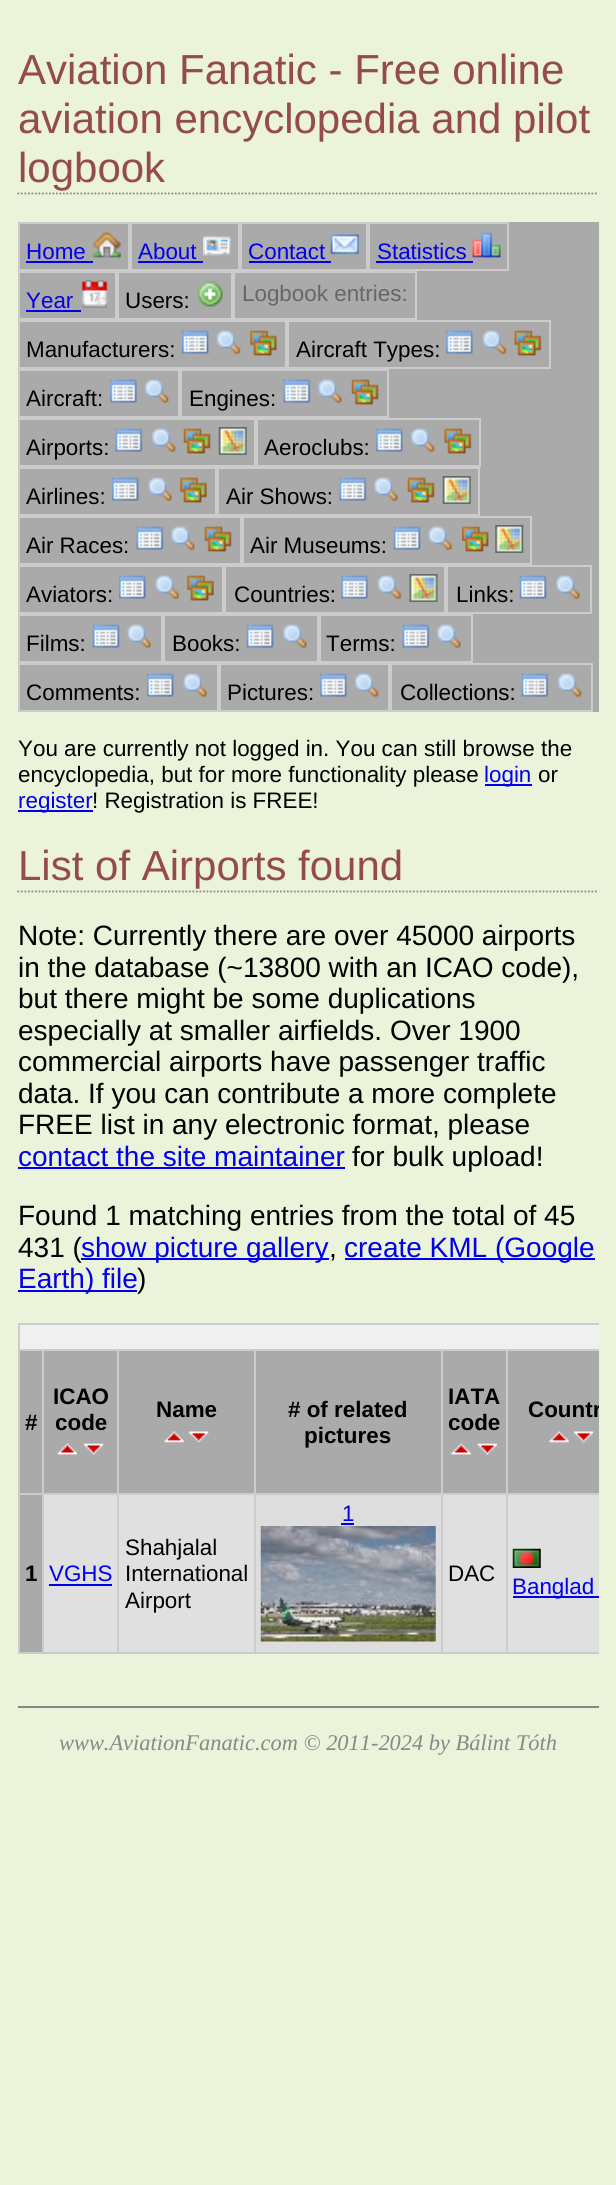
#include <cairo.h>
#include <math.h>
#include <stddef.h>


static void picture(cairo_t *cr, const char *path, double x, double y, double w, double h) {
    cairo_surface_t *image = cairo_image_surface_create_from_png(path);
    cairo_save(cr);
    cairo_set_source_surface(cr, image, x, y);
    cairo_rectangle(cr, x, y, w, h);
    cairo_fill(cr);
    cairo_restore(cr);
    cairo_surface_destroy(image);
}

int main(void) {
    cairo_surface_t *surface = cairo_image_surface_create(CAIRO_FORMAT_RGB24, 616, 2185);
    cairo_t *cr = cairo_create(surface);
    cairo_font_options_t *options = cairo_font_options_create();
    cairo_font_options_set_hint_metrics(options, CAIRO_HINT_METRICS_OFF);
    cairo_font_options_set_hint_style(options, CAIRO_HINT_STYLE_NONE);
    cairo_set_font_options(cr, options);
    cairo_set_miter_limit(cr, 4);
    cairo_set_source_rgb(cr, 0.918, 0.953, 0.855);
    cairo_paint(cr);
    cairo_new_path(cr);
    cairo_move_to(cr, 17.5, 193.5);
    cairo_line_to(cr, 598.5, 193.5);
    cairo_set_source_rgb(cr, 0.533, 0.533, 0.533);
    cairo_set_line_width(cr, 1.8);
    cairo_set_dash(cr, (double[]){1.75, 1.75}, 2, 0);
    cairo_stroke(cr);
    cairo_select_font_face(cr, "Liberation Sans", CAIRO_FONT_SLANT_NORMAL, CAIRO_FONT_WEIGHT_NORMAL);
    cairo_set_font_size(cr, 42);
    cairo_set_source_rgb(cr, 0.584, 0.294, 0.294);
    cairo_move_to(cr, 18, 84);
    cairo_show_text(cr, "Aviation Fanatic - Free online");
    cairo_move_to(cr, 18, 133);
    cairo_show_text(cr, "aviation encyclopedia and pilot");
    cairo_move_to(cr, 18, 182);
    cairo_show_text(cr, "logbook");
    cairo_set_source_rgb(cr, 0.667, 0.667, 0.667);
    cairo_rectangle(cr, 20, 222, 579, 490);
    cairo_fill(cr);
    cairo_rectangle(cr, 19, 223, 110, 47);
    cairo_set_source_rgb(cr, 0.8, 0.8, 0.8);
    cairo_set_line_width(cr, 2);
    cairo_set_dash(cr, NULL, 0, 0);
    cairo_stroke(cr);
    cairo_set_font_size(cr, 22.4);
    cairo_set_source_rgb(cr, 0, 0, 0.933);
    cairo_move_to(cr, 26, 259);
    cairo_show_text(cr, "Home");
    cairo_rectangle(cr, 26, 261, 67, 2);
    cairo_fill(cr);
    picture(cr, "img1.png", 92, 231, 29, 27);
    cairo_rectangle(cr, 131, 223, 108, 47);
    cairo_set_source_rgb(cr, 0.8, 0.8, 0.8);
    cairo_stroke(cr);
    cairo_set_source_rgb(cr, 0, 0, 0.933);
    cairo_move_to(cr, 138, 259);
    cairo_show_text(cr, "About");
    cairo_rectangle(cr, 138, 261, 65, 2);
    cairo_fill(cr);
    picture(cr, "img2.png", 203, 236, 28, 20);
    cairo_rectangle(cr, 241, 223, 126, 47);
    cairo_set_source_rgb(cr, 0.8, 0.8, 0.8);
    cairo_stroke(cr);
    cairo_set_source_rgb(cr, 0, 0, 0.933);
    cairo_move_to(cr, 248, 259);
    cairo_show_text(cr, "Contact");
    cairo_rectangle(cr, 249, 261, 82, 2);
    cairo_fill(cr);
    picture(cr, "img3.png", 330, 234, 29, 21);
    cairo_rectangle(cr, 369, 223, 139, 47);
    cairo_set_source_rgb(cr, 0.8, 0.8, 0.8);
    cairo_stroke(cr);
    cairo_set_source_rgb(cr, 0, 0, 0.933);
    cairo_move_to(cr, 377, 259);
    cairo_show_text(cr, "Statistics");
    cairo_rectangle(cr, 376, 261, 97, 2);
    cairo_fill(cr);
    picture(cr, "img4.png", 472, 232, 29, 26);
    cairo_rectangle(cr, 19, 272, 97, 47);
    cairo_set_source_rgb(cr, 0.8, 0.8, 0.8);
    cairo_stroke(cr);
    cairo_set_source_rgb(cr, 0, 0, 0.933);
    cairo_move_to(cr, 26, 308);
    cairo_show_text(cr, "Year");
    cairo_rectangle(cr, 26, 310, 55, 2);
    cairo_fill(cr);
    picture(cr, "img5.png", 81, 280, 27, 28);
    cairo_rectangle(cr, 118, 272, 114, 47);
    cairo_set_source_rgb(cr, 0.8, 0.8, 0.8);
    cairo_stroke(cr);
    cairo_set_source_rgb(cr, 0, 0, 0);
    cairo_move_to(cr, 125, 308);
    cairo_show_text(cr, "Users:");
    picture(cr, "img6.png", 197, 281, 26, 26);
    cairo_rectangle(cr, 234, 272, 182, 47);
    cairo_set_source_rgb(cr, 0.8, 0.8, 0.8);
    cairo_stroke(cr);
    cairo_set_source_rgb(cr, 0.4, 0.4, 0.4);
    cairo_move_to(cr, 242, 301);
    cairo_show_text(cr, "Logbook entries:");
    cairo_rectangle(cr, 19, 321, 267, 47);
    cairo_set_source_rgb(cr, 0.8, 0.8, 0.8);
    cairo_stroke(cr);
    cairo_set_source_rgb(cr, 0, 0, 0);
    cairo_move_to(cr, 26, 357);
    cairo_show_text(cr, "Manufacturers:");
    picture(cr, "img7.png", 182, 330, 27, 24);
    picture(cr, "img8.png", 216, 330, 25, 26);
    picture(cr, "img9.png", 250, 330, 27, 26);
    cairo_rectangle(cr, 288, 321, 262, 47);
    cairo_set_source_rgb(cr, 0.8, 0.8, 0.8);
    cairo_stroke(cr);
    cairo_set_source_rgb(cr, 0, 0, 0);
    cairo_move_to(cr, 296, 357);
    cairo_show_text(cr, "Aircraft Types:");
    picture(cr, "img10.png", 446, 330, 27, 24);
    picture(cr, "img8.png", 482, 330, 25, 26);
    picture(cr, "img11.png", 514, 330, 28, 26);
    cairo_rectangle(cr, 19, 370, 160, 47);
    cairo_set_source_rgb(cr, 0.8, 0.8, 0.8);
    cairo_stroke(cr);
    cairo_set_source_rgb(cr, 0, 0, 0);
    cairo_move_to(cr, 26, 406);
    cairo_show_text(cr, "Aircraft:");
    picture(cr, "img12.png", 110, 379, 27, 24);
    picture(cr, "img13.png", 144, 379, 25, 26);
    cairo_rectangle(cr, 181, 370, 207, 47);
    cairo_set_source_rgb(cr, 0.8, 0.8, 0.8);
    cairo_stroke(cr);
    cairo_set_source_rgb(cr, 0, 0, 0);
    cairo_move_to(cr, 189, 406);
    cairo_show_text(cr, "Engines:");
    picture(cr, "img14.png", 283, 379, 28, 24);
    picture(cr, "img15.png", 318, 379, 24, 26);
    picture(cr, "img16.png", 351, 379, 28, 26);
    cairo_rectangle(cr, 19, 419, 236, 47);
    cairo_set_source_rgb(cr, 0.8, 0.8, 0.8);
    cairo_stroke(cr);
    cairo_set_source_rgb(cr, 0, 0, 0);
    cairo_move_to(cr, 26, 455);
    cairo_show_text(cr, "Airports:");
    picture(cr, "img17.png", 115, 428, 28, 24);
    picture(cr, "img18.png", 151, 428, 25, 26);
    picture(cr, "img16.png", 183, 428, 28, 26);
    picture(cr, "img19.png", 218, 427, 29, 28);
    cairo_rectangle(cr, 257, 419, 223, 47);
    cairo_set_source_rgb(cr, 0.8, 0.8, 0.8);
    cairo_stroke(cr);
    cairo_set_source_rgb(cr, 0, 0, 0);
    cairo_move_to(cr, 264, 455);
    cairo_show_text(cr, "Aeroclubs:");
    picture(cr, "img10.png", 376, 428, 27, 24);
    picture(cr, "img18.png", 410, 428, 25, 26);
    picture(cr, "img20.png", 444, 428, 28, 26);
    cairo_rectangle(cr, 19, 468, 197, 47);
    cairo_set_source_rgb(cr, 0.8, 0.8, 0.8);
    cairo_stroke(cr);
    cairo_set_source_rgb(cr, 0, 0, 0);
    cairo_move_to(cr, 26, 504);
    cairo_show_text(cr, "Airlines:");
    picture(cr, "img21.png", 112, 477, 27, 24);
    picture(cr, "img22.png", 148, 477, 24, 26);
    picture(cr, "img23.png", 180, 477, 27, 26);
    cairo_rectangle(cr, 218, 468, 261, 47);
    cairo_set_source_rgb(cr, 0.8, 0.8, 0.8);
    cairo_stroke(cr);
    cairo_set_source_rgb(cr, 0, 0, 0);
    cairo_move_to(cr, 226, 504);
    cairo_show_text(cr, "Air Shows:");
    picture(cr, "img17.png", 339, 477, 28, 24);
    picture(cr, "img15.png", 374, 477, 24, 26);
    picture(cr, "img24.png", 407, 477, 28, 26);
    picture(cr, "img25.png", 442, 476, 29, 28);
    cairo_rectangle(cr, 19, 517, 222, 47);
    cairo_set_source_rgb(cr, 0.8, 0.8, 0.8);
    cairo_stroke(cr);
    cairo_set_source_rgb(cr, 0, 0, 0);
    cairo_move_to(cr, 26, 553);
    cairo_show_text(cr, "Air Races:");
    picture(cr, "img17.png", 136, 526, 28, 24);
    picture(cr, "img26.png", 171, 526, 24, 26);
    picture(cr, "img16.png", 204, 526, 28, 26);
    cairo_rectangle(cr, 243, 517, 288, 47);
    cairo_set_source_rgb(cr, 0.8, 0.8, 0.8);
    cairo_stroke(cr);
    cairo_set_source_rgb(cr, 0, 0, 0);
    cairo_move_to(cr, 250, 553);
    cairo_show_text(cr, "Air Museums:");
    picture(cr, "img27.png", 393, 526, 28, 24);
    picture(cr, "img28.png", 428, 526, 24, 26);
    picture(cr, "img29.png", 462, 526, 27, 26);
    picture(cr, "img30.png", 495, 525, 29, 28);
    cairo_rectangle(cr, 19, 566, 204, 47);
    cairo_set_source_rgb(cr, 0.8, 0.8, 0.8);
    cairo_stroke(cr);
    cairo_set_source_rgb(cr, 0, 0, 0);
    cairo_move_to(cr, 26, 602);
    cairo_show_text(cr, "Aviators:");
    picture(cr, "img21.png", 119, 575, 27, 24);
    picture(cr, "img28.png", 155, 575, 24, 26);
    picture(cr, "img23.png", 187, 575, 27, 26);
    cairo_rectangle(cr, 225, 566, 220, 47);
    cairo_set_source_rgb(cr, 0.8, 0.8, 0.8);
    cairo_stroke(cr);
    cairo_set_source_rgb(cr, 0, 0, 0);
    cairo_move_to(cr, 234, 602);
    cairo_show_text(cr, "Countries:");
    picture(cr, "img10.png", 341, 575, 27, 24);
    picture(cr, "img8.png", 377, 575, 25, 26);
    picture(cr, "img31.png", 409, 574, 29, 28);
    cairo_rectangle(cr, 447, 566, 144, 47);
    cairo_set_source_rgb(cr, 0.8, 0.8, 0.8);
    cairo_stroke(cr);
    cairo_set_source_rgb(cr, 0, 0, 0);
    cairo_move_to(cr, 456, 602);
    cairo_show_text(cr, "Links:");
    picture(cr, "img27.png", 519, 575, 28, 24);
    picture(cr, "img15.png", 556, 575, 24, 26);
    cairo_rectangle(cr, 19, 615, 143, 47);
    cairo_set_source_rgb(cr, 0.8, 0.8, 0.8);
    cairo_stroke(cr);
    cairo_set_source_rgb(cr, 0, 0, 0);
    cairo_move_to(cr, 26, 651);
    cairo_show_text(cr, "Films:");
    picture(cr, "img32.png", 92, 624, 28, 24);
    picture(cr, "img22.png", 127, 624, 24, 26);
    cairo_rectangle(cr, 164, 615, 154, 47);
    cairo_set_source_rgb(cr, 0.8, 0.8, 0.8);
    cairo_stroke(cr);
    cairo_set_source_rgb(cr, 0, 0, 0);
    cairo_move_to(cr, 172, 651);
    cairo_show_text(cr, "Books:");
    picture(cr, "img27.png", 246, 624, 28, 24);
    picture(cr, "img15.png", 283, 624, 24, 26);
    cairo_rectangle(cr, 320, 615, 152, 47);
    cairo_set_source_rgb(cr, 0.8, 0.8, 0.8);
    cairo_stroke(cr);
    cairo_set_source_rgb(cr, 0, 0, 0);
    cairo_move_to(cr, 326, 651);
    cairo_show_text(cr, "Terms:");
    picture(cr, "img33.png", 402, 624, 28, 24);
    picture(cr, "img15.png", 437, 624, 24, 26);
    cairo_rectangle(cr, 19, 664, 199, 47);
    cairo_set_source_rgb(cr, 0.8, 0.8, 0.8);
    cairo_stroke(cr);
    cairo_set_source_rgb(cr, 0, 0, 0);
    cairo_move_to(cr, 26, 700);
    cairo_show_text(cr, "Comments:");
    picture(cr, "img21.png", 147, 673, 27, 24);
    picture(cr, "img28.png", 183, 673, 24, 26);
    cairo_rectangle(cr, 220, 664, 169, 47);
    cairo_set_source_rgb(cr, 0.8, 0.8, 0.8);
    cairo_stroke(cr);
    cairo_set_source_rgb(cr, 0, 0, 0);
    cairo_move_to(cr, 227, 700);
    cairo_show_text(cr, "Pictures:");
    picture(cr, "img10.png", 320, 673, 27, 24);
    picture(cr, "img18.png", 354, 673, 25, 26);
    cairo_rectangle(cr, 391, 664, 201, 47);
    cairo_set_source_rgb(cr, 0.8, 0.8, 0.8);
    cairo_stroke(cr);
    cairo_set_source_rgb(cr, 0, 0, 0);
    cairo_move_to(cr, 400, 700);
    cairo_show_text(cr, "Collections:");
    picture(cr, "img17.png", 521, 673, 28, 24);
    picture(cr, "img34.png", 557, 673, 25, 26);
    cairo_move_to(cr, 18, 756);
    cairo_show_text(cr, "You are currently not logged in. You can still browse the");
    cairo_move_to(cr, 18, 782);
    cairo_show_text(cr, "encyclopedia, but for more functionality please");
    cairo_set_source_rgb(cr, 0, 0, 0.933);
    cairo_rectangle(cr, 485, 784, 47, 2);
    cairo_fill(cr);
    cairo_move_to(cr, 484, 782);
    cairo_show_text(cr, "login");
    cairo_set_source_rgb(cr, 0, 0, 0);
    cairo_move_to(cr, 538, 782);
    cairo_show_text(cr, "or");
    cairo_set_source_rgb(cr, 0, 0, 0.933);
    cairo_rectangle(cr, 18, 810, 75, 2);
    cairo_fill(cr);
    cairo_move_to(cr, 18, 808);
    cairo_show_text(cr, "register");
    cairo_set_source_rgb(cr, 0, 0, 0);
    cairo_move_to(cr, 92, 808);
    cairo_show_text(cr, "! Registration is FREE!");
    cairo_new_path(cr);
    cairo_move_to(cr, 17.5, 891.5);
    cairo_line_to(cr, 598.5, 891.5);
    cairo_set_source_rgb(cr, 0.533, 0.533, 0.533);
    cairo_set_line_width(cr, 1.8);
    cairo_set_dash(cr, (double[]){1.75, 1.75}, 2, 0);
    cairo_stroke(cr);
    cairo_set_font_size(cr, 42);
    cairo_set_source_rgb(cr, 0.584, 0.294, 0.294);
    cairo_move_to(cr, 18, 880);
    cairo_show_text(cr, "List of Airports found");
    cairo_set_font_size(cr, 28);
    cairo_set_source_rgb(cr, 0, 0, 0);
    cairo_move_to(cr, 18, 945);
    cairo_show_text(cr, "Note: Currently there are over 45000 airports");
    cairo_move_to(cr, 18, 977);
    cairo_show_text(cr, "in the database (~13800 with an ICAO code),");
    cairo_move_to(cr, 18, 1008);
    cairo_show_text(cr, "but there might be some duplications");
    cairo_move_to(cr, 18, 1040);
    cairo_show_text(cr, "especially at smaller airfields. Over 1900");
    cairo_move_to(cr, 18, 1071);
    cairo_show_text(cr, "commercial airports have passenger traffic");
    cairo_move_to(cr, 18, 1103);
    cairo_show_text(cr, "data. If you can contribute a more complete");
    cairo_move_to(cr, 18, 1134);
    cairo_show_text(cr, "FREE list in any electronic format, please");
    cairo_set_source_rgb(cr, 0, 0, 0.933);
    cairo_move_to(cr, 18, 1166);
    cairo_show_text(cr, "contact the site maintainer");
    cairo_rectangle(cr, 18, 1167, 327, 2);
    cairo_fill(cr);
    cairo_set_source_rgb(cr, 0, 0, 0);
    cairo_move_to(cr, 352, 1166);
    cairo_show_text(cr, "for bulk upload!");
    cairo_move_to(cr, 18, 1225);
    cairo_show_text(cr, "Found 1 matching entries from the total of 45");
    cairo_move_to(cr, 18, 1257);
    cairo_show_text(cr, "431 (");
    cairo_set_source_rgb(cr, 0, 0, 0.933);
    cairo_rectangle(cr, 81, 1258, 248, 2);
    cairo_fill(cr);
    cairo_move_to(cr, 81, 1257);
    cairo_show_text(cr, "show picture gallery");
    cairo_set_source_rgb(cr, 0, 0, 0);
    cairo_move_to(cr, 329, 1257);
    cairo_show_text(cr, ",");
    cairo_set_source_rgb(cr, 0, 0, 0.933);
    cairo_rectangle(cr, 345, 1258, 250, 2);
    cairo_fill(cr);
    cairo_move_to(cr, 344, 1257);
    cairo_show_text(cr, "create KML (Google");
    cairo_rectangle(cr, 18, 1290, 119, 2);
    cairo_fill(cr);
    cairo_move_to(cr, 18, 1288);
    cairo_show_text(cr, "Earth) file");
    cairo_set_source_rgb(cr, 0, 0, 0);
    cairo_move_to(cr, 137, 1288);
    cairo_show_text(cr, ")");
    cairo_set_source_rgb(cr, 0.941, 0.941, 0.941);
    cairo_rectangle(cr, 20, 1325, 579, 24);
    cairo_fill(cr);
    cairo_set_source_rgb(cr, 0.8, 0.8, 0.8);
    cairo_rectangle(cr, 18, 1323, 581, 2);
    cairo_fill(cr);
    cairo_rectangle(cr, 18, 1652, 581, 2);
    cairo_fill(cr);
    cairo_rectangle(cr, 18, 1323, 2, 331);
    cairo_fill(cr);
    cairo_set_source_rgb(cr, 0.667, 0.667, 0.667);
    cairo_rectangle(cr, 44, 1351, 73, 142);
    cairo_fill(cr);
    cairo_set_source_rgb(cr, 0.8, 0.8, 0.8);
    cairo_rectangle(cr, 506, 1349, 93, 2);
    cairo_fill(cr);
    cairo_rectangle(cr, 506, 1493, 93, 2);
    cairo_fill(cr);
    cairo_set_source_rgb(cr, 0.878, 0.878, 0.878);
    cairo_rectangle(cr, 44, 1495, 555, 157);
    cairo_fill(cr);
    cairo_set_source_rgb(cr, 0.8, 0.8, 0.8);
    cairo_rectangle(cr, 506, 1493, 2, 161);
    cairo_fill(cr);
    cairo_rectangle(cr, 441, 1493, 67, 2);
    cairo_fill(cr);
    cairo_rectangle(cr, 506, 1349, 2, 146);
    cairo_fill(cr);
    cairo_rectangle(cr, 441, 1349, 67, 2);
    cairo_fill(cr);
    cairo_rectangle(cr, 441, 1493, 2, 161);
    cairo_fill(cr);
    cairo_rectangle(cr, 254, 1493, 189, 2);
    cairo_fill(cr);
    cairo_rectangle(cr, 441, 1349, 2, 146);
    cairo_fill(cr);
    cairo_rectangle(cr, 254, 1349, 189, 2);
    cairo_fill(cr);
    cairo_rectangle(cr, 254, 1493, 2, 161);
    cairo_fill(cr);
    cairo_rectangle(cr, 117, 1493, 139, 2);
    cairo_fill(cr);
    cairo_rectangle(cr, 254, 1349, 2, 146);
    cairo_fill(cr);
    cairo_rectangle(cr, 117, 1349, 139, 2);
    cairo_fill(cr);
    cairo_rectangle(cr, 117, 1493, 2, 161);
    cairo_fill(cr);
    cairo_rectangle(cr, 42, 1493, 77, 2);
    cairo_fill(cr);
    cairo_rectangle(cr, 117, 1349, 2, 146);
    cairo_fill(cr);
    cairo_rectangle(cr, 42, 1349, 77, 2);
    cairo_fill(cr);
    cairo_rectangle(cr, 42, 1493, 2, 161);
    cairo_fill(cr);
    cairo_rectangle(cr, 18, 1493, 26, 2);
    cairo_fill(cr);
    cairo_rectangle(cr, 42, 1349, 2, 146);
    cairo_fill(cr);
    cairo_select_font_face(cr, "Liberation Sans", CAIRO_FONT_SLANT_NORMAL, CAIRO_FONT_WEIGHT_BOLD);
    cairo_set_font_size(cr, 22.4);
    cairo_set_source_rgb(cr, 0, 0, 0);
    cairo_move_to(cr, 53, 1404);
    cairo_show_text(cr, "ICAO");
    cairo_move_to(cr, 55, 1430);
    cairo_show_text(cr, "code");
    picture(cr, "img35.png", 57, 1443, 20, 12);
    picture(cr, "img36.png", 84, 1443, 20, 12);
    cairo_set_source_rgb(cr, 0.667, 0.667, 0.667);
    cairo_rectangle(cr, 119, 1351, 135, 142);
    cairo_fill(cr);
    cairo_set_source_rgb(cr, 0, 0, 0);
    cairo_move_to(cr, 156, 1417);
    cairo_show_text(cr, "Name");
    picture(cr, "img37.png", 164, 1431, 20, 12);
    picture(cr, "img38.png", 189, 1431, 20, 12);
    cairo_set_source_rgb(cr, 0.667, 0.667, 0.667);
    cairo_rectangle(cr, 256, 1351, 185, 142);
    cairo_fill(cr);
    cairo_set_source_rgb(cr, 0, 0, 0);
    cairo_move_to(cr, 288, 1417);
    cairo_show_text(cr, "# of related");
    cairo_move_to(cr, 304, 1443);
    cairo_show_text(cr, "pictures");
    cairo_set_source_rgb(cr, 0.667, 0.667, 0.667);
    cairo_rectangle(cr, 443, 1351, 63, 142);
    cairo_fill(cr);
    cairo_set_source_rgb(cr, 0, 0, 0);
    cairo_move_to(cr, 448, 1404);
    cairo_show_text(cr, "IATA");
    cairo_move_to(cr, 448, 1430);
    cairo_show_text(cr, "code");
    picture(cr, "img39.png", 451, 1443, 20, 12);
    picture(cr, "img40.png", 477, 1443, 20, 12);
    cairo_set_source_rgb(cr, 0.667, 0.667, 0.667);
    cairo_rectangle(cr, 508, 1351, 91, 142);
    cairo_fill(cr);
    cairo_save(cr);
    cairo_rectangle(cr, 18, 1323, 581, 331);
    cairo_clip(cr);
    cairo_set_source_rgb(cr, 0, 0, 0);
    cairo_move_to(cr, 528, 1417);
    cairo_show_text(cr, "Countr");
    cairo_restore(cr);
    picture(cr, "img41.png", 549, 1431, 20, 12);
    picture(cr, "img38.png", 574, 1431, 20, 12);
    cairo_rectangle(cr, 20, 1351, 22, 142);
    cairo_fill(cr);
    cairo_set_source_rgb(cr, 0.8, 0.8, 0.8);
    cairo_rectangle(cr, 18, 1349, 26, 2);
    cairo_fill(cr);
    cairo_set_source_rgb(cr, 0, 0, 0);
    cairo_move_to(cr, 25, 1430);
    cairo_show_text(cr, "#");
    cairo_set_source_rgb(cr, 0.867, 0.867, 0.867);
    cairo_rectangle(cr, 256, 1495, 185, 157);
    cairo_fill(cr);
    cairo_select_font_face(cr, "Liberation Sans", CAIRO_FONT_SLANT_NORMAL, CAIRO_FONT_WEIGHT_NORMAL);
    cairo_set_source_rgb(cr, 0, 0, 0.933);
    cairo_move_to(cr, 342, 1521);
    cairo_show_text(cr, "1");
    cairo_rectangle(cr, 341, 1523, 13, 2);
    cairo_fill(cr);
    picture(cr, "img42.png", 260, 1526, 176, 116);
    cairo_set_source_rgb(cr, 0.667, 0.667, 0.667);
    cairo_rectangle(cr, 20, 1495, 22, 157);
    cairo_fill(cr);
    cairo_select_font_face(cr, "Liberation Sans", CAIRO_FONT_SLANT_NORMAL, CAIRO_FONT_WEIGHT_BOLD);
    cairo_set_source_rgb(cr, 0, 0, 0);
    cairo_move_to(cr, 25, 1581);
    cairo_show_text(cr, "1");
    cairo_select_font_face(cr, "Liberation Sans", CAIRO_FONT_SLANT_NORMAL, CAIRO_FONT_WEIGHT_NORMAL);
    cairo_set_source_rgb(cr, 0, 0, 0.933);
    cairo_move_to(cr, 49, 1581);
    cairo_show_text(cr, "VGHS");
    cairo_rectangle(cr, 49, 1584, 63, 2);
    cairo_fill(cr);
    cairo_set_source_rgb(cr, 0, 0, 0);
    cairo_move_to(cr, 125, 1555);
    cairo_show_text(cr, "Shahjalal");
    cairo_move_to(cr, 125, 1581);
    cairo_show_text(cr, "International");
    cairo_move_to(cr, 125, 1608);
    cairo_show_text(cr, "Airport");
    cairo_move_to(cr, 448, 1581);
    cairo_show_text(cr, "DAC");
    picture(cr, "img43.png", 512, 1548, 29, 20);
    cairo_set_source_rgb(cr, 0, 0, 0.933);
    cairo_rectangle(cr, 513, 1596, 86, 2);
    cairo_fill(cr);
    cairo_move_to(cr, 512, 1594);
    cairo_show_text(cr, "Banglad");
    cairo_set_source_rgb(cr, 0.533, 0.533, 0.533);
    cairo_rectangle(cr, 18, 1706, 581, 2);
    cairo_fill(cr);
    cairo_select_font_face(cr, "Liberation Serif", CAIRO_FONT_SLANT_ITALIC, CAIRO_FONT_WEIGHT_NORMAL);
    cairo_move_to(cr, 59, 1750);
    cairo_show_text(cr, "www.AviationFanatic.com © 2011-2024 by Bálint Tóth");
    cairo_surface_write_to_png(surface, "page.png");
    cairo_font_options_destroy(options);
    cairo_destroy(cr);
    cairo_surface_destroy(surface);
    return 0;
}
